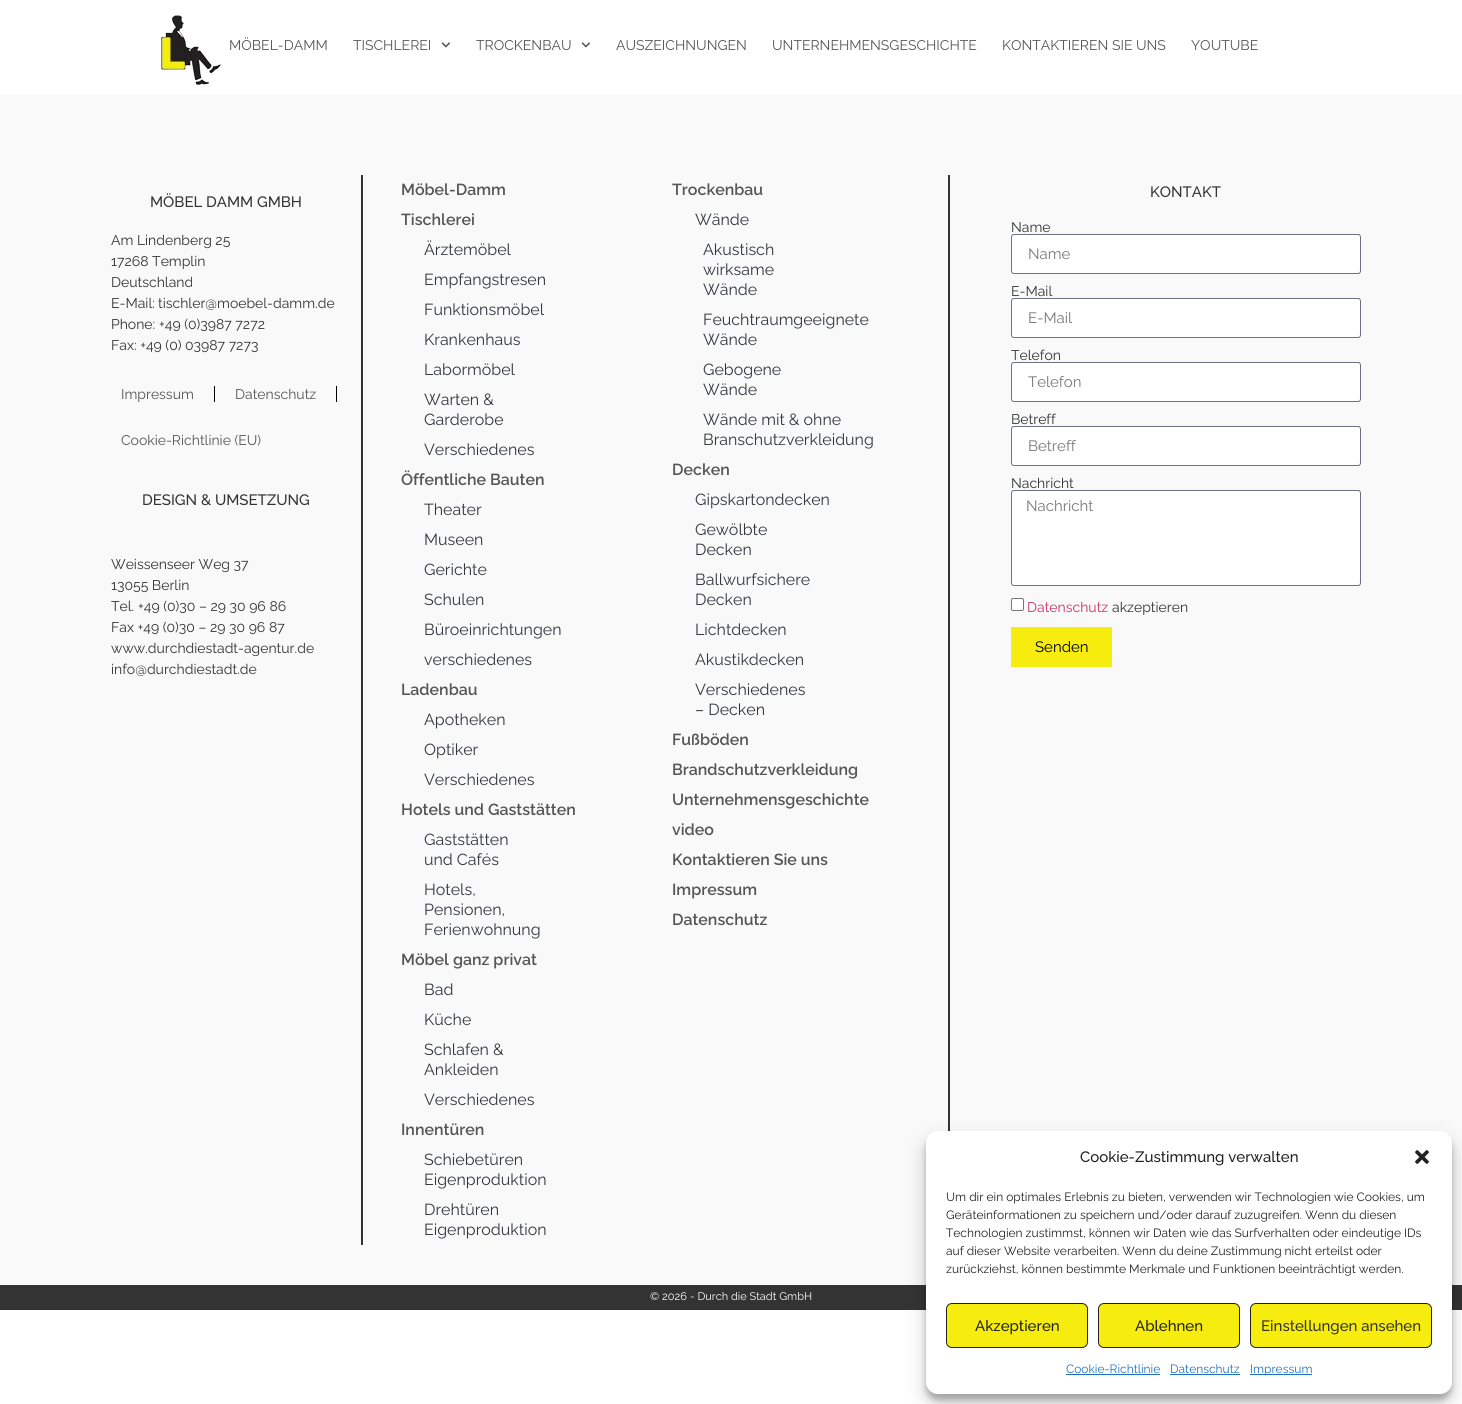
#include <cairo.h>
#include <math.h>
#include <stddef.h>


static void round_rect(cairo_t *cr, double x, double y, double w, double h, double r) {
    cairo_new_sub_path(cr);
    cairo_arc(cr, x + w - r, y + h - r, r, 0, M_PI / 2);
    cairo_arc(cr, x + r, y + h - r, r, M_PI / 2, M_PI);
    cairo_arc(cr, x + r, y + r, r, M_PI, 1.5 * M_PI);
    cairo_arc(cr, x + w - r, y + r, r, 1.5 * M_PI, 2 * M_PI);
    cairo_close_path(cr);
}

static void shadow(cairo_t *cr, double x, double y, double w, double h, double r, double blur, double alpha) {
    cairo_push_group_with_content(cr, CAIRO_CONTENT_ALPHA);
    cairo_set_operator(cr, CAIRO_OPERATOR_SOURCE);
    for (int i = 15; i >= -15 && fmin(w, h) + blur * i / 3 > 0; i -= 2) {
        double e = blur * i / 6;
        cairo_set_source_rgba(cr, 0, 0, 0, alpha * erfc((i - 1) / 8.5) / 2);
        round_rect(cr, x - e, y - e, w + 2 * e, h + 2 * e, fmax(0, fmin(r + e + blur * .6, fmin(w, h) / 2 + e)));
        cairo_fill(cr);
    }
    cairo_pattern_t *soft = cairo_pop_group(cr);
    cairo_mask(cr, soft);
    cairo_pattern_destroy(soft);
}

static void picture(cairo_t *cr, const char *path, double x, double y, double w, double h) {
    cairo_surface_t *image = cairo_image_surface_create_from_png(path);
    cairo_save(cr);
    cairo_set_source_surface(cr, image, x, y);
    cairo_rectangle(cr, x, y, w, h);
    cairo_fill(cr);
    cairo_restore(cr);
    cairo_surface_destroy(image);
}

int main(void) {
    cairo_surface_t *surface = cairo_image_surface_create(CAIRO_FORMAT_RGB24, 1462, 1404);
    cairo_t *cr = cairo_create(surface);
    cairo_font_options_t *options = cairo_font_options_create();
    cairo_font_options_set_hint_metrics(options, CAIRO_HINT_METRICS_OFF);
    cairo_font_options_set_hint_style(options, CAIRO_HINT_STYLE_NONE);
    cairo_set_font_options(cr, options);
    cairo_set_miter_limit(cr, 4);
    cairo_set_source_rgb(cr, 1, 1, 1);
    cairo_paint(cr);
    picture(cr, "img1.png", 161, 15, 60, 70);
    cairo_select_font_face(cr, "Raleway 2", CAIRO_FONT_SLANT_NORMAL, CAIRO_FONT_WEIGHT_NORMAL);
    cairo_set_font_size(cr, 14);
    cairo_set_source_rgb(cr, 0.333, 0.333, 0.333);
    cairo_move_to(cr, 229, 50);
    cairo_show_text(cr, "MÖBEL-DAMM");
    cairo_move_to(cr, 353, 50);
    cairo_show_text(cr, "TISCHLEREI");
    picture(cr, "img2.png", 441, 42, 9, 6);
    cairo_move_to(cr, 476, 50);
    cairo_show_text(cr, "TROCKENBAU");
    picture(cr, "img2.png", 581, 42, 9, 6);
    cairo_move_to(cr, 616, 50);
    cairo_show_text(cr, "AUSZEICHNUNGEN");
    cairo_move_to(cr, 772, 50);
    cairo_show_text(cr, "UNTERNEHMENSGESCHICHTE");
    cairo_move_to(cr, 1002, 50);
    cairo_show_text(cr, "KONTAKTIEREN SIE UNS");
    cairo_move_to(cr, 1191, 50);
    cairo_show_text(cr, "YOUTUBE");
    cairo_set_source_rgb(cr, 0.976, 0.976, 0.976);
    cairo_rectangle(cr, 0, 95, 1462, 1190);
    cairo_fill(cr);
    cairo_select_font_face(cr, "Raleway Medium", CAIRO_FONT_SLANT_NORMAL, CAIRO_FONT_WEIGHT_NORMAL);
    cairo_set_font_size(cr, 15);
    cairo_set_source_rgb(cr, 0.2, 0.2, 0.2);
    cairo_move_to(cr, 150, 207);
    cairo_show_text(cr, "MÖBEL DAMM GMBH");
    cairo_select_font_face(cr, "Raleway", CAIRO_FONT_SLANT_NORMAL, CAIRO_FONT_WEIGHT_NORMAL);
    cairo_set_font_size(cr, 14);
    cairo_move_to(cr, 111, 245);
    cairo_show_text(cr, "Am Lindenberg 25");
    cairo_move_to(cr, 111, 266);
    cairo_show_text(cr, "17268 Templin");
    cairo_move_to(cr, 111, 287);
    cairo_show_text(cr, "Deutschland");
    cairo_move_to(cr, 111, 308);
    cairo_show_text(cr, "E-Mail:");
    cairo_select_font_face(cr, "Raleway 2", CAIRO_FONT_SLANT_NORMAL, CAIRO_FONT_WEIGHT_NORMAL);
    cairo_move_to(cr, 158, 308);
    cairo_show_text(cr, "tischler@moebel-damm.de");
    cairo_select_font_face(cr, "Raleway", CAIRO_FONT_SLANT_NORMAL, CAIRO_FONT_WEIGHT_NORMAL);
    cairo_move_to(cr, 111, 329);
    cairo_show_text(cr, "Phone:");
    cairo_select_font_face(cr, "Raleway 2", CAIRO_FONT_SLANT_NORMAL, CAIRO_FONT_WEIGHT_NORMAL);
    cairo_move_to(cr, 159, 329);
    cairo_show_text(cr, "+49 (0)3987 7272");
    cairo_select_font_face(cr, "Raleway", CAIRO_FONT_SLANT_NORMAL, CAIRO_FONT_WEIGHT_NORMAL);
    cairo_move_to(cr, 111, 350);
    cairo_show_text(cr, "Fax: +49 (0) 03987 7273");
    cairo_select_font_face(cr, "Raleway 2", CAIRO_FONT_SLANT_NORMAL, CAIRO_FONT_WEIGHT_NORMAL);
    cairo_set_source_rgb(cr, 0.333, 0.333, 0.333);
    cairo_move_to(cr, 121, 399);
    cairo_show_text(cr, "Impressum");
    cairo_set_source_rgb(cr, 0, 0, 0);
    cairo_rectangle(cr, 214, 386, 1, 16);
    cairo_fill(cr);
    cairo_set_source_rgb(cr, 0.333, 0.333, 0.333);
    cairo_move_to(cr, 235, 399);
    cairo_show_text(cr, "Datenschutz");
    cairo_set_source_rgb(cr, 0, 0, 0);
    cairo_rectangle(cr, 336, 386, 1, 16);
    cairo_fill(cr);
    cairo_set_source_rgb(cr, 0.333, 0.333, 0.333);
    cairo_move_to(cr, 121, 445);
    cairo_show_text(cr, "Cookie-Richtlinie (EU)");
    cairo_select_font_face(cr, "Raleway Medium", CAIRO_FONT_SLANT_NORMAL, CAIRO_FONT_WEIGHT_NORMAL);
    cairo_set_font_size(cr, 15);
    cairo_set_source_rgb(cr, 0.2, 0.2, 0.2);
    cairo_move_to(cr, 142, 505);
    cairo_show_text(cr, "DESIGN & UMSETZUNG");
    cairo_select_font_face(cr, "Raleway", CAIRO_FONT_SLANT_NORMAL, CAIRO_FONT_WEIGHT_NORMAL);
    cairo_set_font_size(cr, 14);
    cairo_move_to(cr, 111, 569);
    cairo_show_text(cr, "Weissenseer Weg 37");
    cairo_move_to(cr, 111, 590);
    cairo_show_text(cr, "13055 Berlin");
    cairo_move_to(cr, 111, 611);
    cairo_show_text(cr, "Tel.");
    cairo_select_font_face(cr, "Raleway 2", CAIRO_FONT_SLANT_NORMAL, CAIRO_FONT_WEIGHT_NORMAL);
    cairo_move_to(cr, 138, 611);
    cairo_show_text(cr, "+49 (0)30 – 29 30 96 86");
    cairo_select_font_face(cr, "Raleway", CAIRO_FONT_SLANT_NORMAL, CAIRO_FONT_WEIGHT_NORMAL);
    cairo_move_to(cr, 111, 632);
    cairo_show_text(cr, "Fax +49 (0)30 – 29 30 96 87");
    cairo_select_font_face(cr, "Raleway 2", CAIRO_FONT_SLANT_NORMAL, CAIRO_FONT_WEIGHT_NORMAL);
    cairo_move_to(cr, 111, 653);
    cairo_show_text(cr, "www.durchdiestadt-agentur.de");
    cairo_move_to(cr, 111, 674);
    cairo_show_text(cr, "info@durchdiestadt.de");
    cairo_rectangle(cr, 948, 175, 2, 956);
    cairo_fill(cr);
    cairo_rectangle(cr, 361, 175, 2, 1070);
    cairo_fill(cr);
    cairo_select_font_face(cr, "Raleway SemiBold", CAIRO_FONT_SLANT_NORMAL, CAIRO_FONT_WEIGHT_NORMAL);
    cairo_set_font_size(cr, 16);
    cairo_set_source_rgb(cr, 0.333, 0.333, 0.333);
    cairo_move_to(cr, 401, 195);
    cairo_show_text(cr, "Möbel-Damm");
    cairo_move_to(cr, 401, 225);
    cairo_show_text(cr, "Tischlerei");
    cairo_select_font_face(cr, "Raleway 2", CAIRO_FONT_SLANT_NORMAL, CAIRO_FONT_WEIGHT_NORMAL);
    cairo_set_source_rgb(cr, 0.2, 0.216, 0.239);
    cairo_move_to(cr, 424, 255);
    cairo_show_text(cr, "Ärztemöbel");
    cairo_move_to(cr, 424, 285);
    cairo_show_text(cr, "Empfangstresen");
    cairo_move_to(cr, 424, 315);
    cairo_show_text(cr, "Funktionsmöbel");
    cairo_move_to(cr, 424, 345);
    cairo_show_text(cr, "Krankenhaus");
    cairo_move_to(cr, 424, 375);
    cairo_show_text(cr, "Labormöbel");
    cairo_move_to(cr, 424, 405);
    cairo_show_text(cr, "Warten &");
    cairo_move_to(cr, 424, 425);
    cairo_show_text(cr, "Garderobe");
    cairo_move_to(cr, 424, 455);
    cairo_show_text(cr, "Verschiedenes");
    cairo_select_font_face(cr, "Raleway SemiBold", CAIRO_FONT_SLANT_NORMAL, CAIRO_FONT_WEIGHT_NORMAL);
    cairo_set_source_rgb(cr, 0.333, 0.333, 0.333);
    cairo_move_to(cr, 401, 485);
    cairo_show_text(cr, "Öffentliche Bauten");
    cairo_select_font_face(cr, "Raleway 2", CAIRO_FONT_SLANT_NORMAL, CAIRO_FONT_WEIGHT_NORMAL);
    cairo_set_source_rgb(cr, 0.2, 0.216, 0.239);
    cairo_move_to(cr, 424, 515);
    cairo_show_text(cr, "Theater");
    cairo_move_to(cr, 424, 545);
    cairo_show_text(cr, "Museen");
    cairo_move_to(cr, 424, 575);
    cairo_show_text(cr, "Gerichte");
    cairo_move_to(cr, 424, 605);
    cairo_show_text(cr, "Schulen");
    cairo_move_to(cr, 424, 635);
    cairo_show_text(cr, "Büroeinrichtungen");
    cairo_move_to(cr, 424, 665);
    cairo_show_text(cr, "verschiedenes");
    cairo_select_font_face(cr, "Raleway SemiBold", CAIRO_FONT_SLANT_NORMAL, CAIRO_FONT_WEIGHT_NORMAL);
    cairo_set_source_rgb(cr, 0.333, 0.333, 0.333);
    cairo_move_to(cr, 401, 695);
    cairo_show_text(cr, "Ladenbau");
    cairo_select_font_face(cr, "Raleway 2", CAIRO_FONT_SLANT_NORMAL, CAIRO_FONT_WEIGHT_NORMAL);
    cairo_set_source_rgb(cr, 0.2, 0.216, 0.239);
    cairo_move_to(cr, 424, 725);
    cairo_show_text(cr, "Apotheken");
    cairo_move_to(cr, 424, 755);
    cairo_show_text(cr, "Optiker");
    cairo_move_to(cr, 424, 785);
    cairo_show_text(cr, "Verschiedenes");
    cairo_select_font_face(cr, "Raleway SemiBold", CAIRO_FONT_SLANT_NORMAL, CAIRO_FONT_WEIGHT_NORMAL);
    cairo_set_source_rgb(cr, 0.333, 0.333, 0.333);
    cairo_move_to(cr, 401, 815);
    cairo_show_text(cr, "Hotels und Gaststätten");
    cairo_select_font_face(cr, "Raleway 2", CAIRO_FONT_SLANT_NORMAL, CAIRO_FONT_WEIGHT_NORMAL);
    cairo_set_source_rgb(cr, 0.2, 0.216, 0.239);
    cairo_move_to(cr, 424, 845);
    cairo_show_text(cr, "Gaststätten");
    cairo_move_to(cr, 424, 865);
    cairo_show_text(cr, "und Cafés");
    cairo_move_to(cr, 424, 895);
    cairo_show_text(cr, "Hotels,");
    cairo_move_to(cr, 424, 915);
    cairo_show_text(cr, "Pensionen,");
    cairo_move_to(cr, 424, 935);
    cairo_show_text(cr, "Ferienwohnung");
    cairo_select_font_face(cr, "Raleway SemiBold", CAIRO_FONT_SLANT_NORMAL, CAIRO_FONT_WEIGHT_NORMAL);
    cairo_set_source_rgb(cr, 0.333, 0.333, 0.333);
    cairo_move_to(cr, 401, 965);
    cairo_show_text(cr, "Möbel ganz privat");
    cairo_select_font_face(cr, "Raleway 2", CAIRO_FONT_SLANT_NORMAL, CAIRO_FONT_WEIGHT_NORMAL);
    cairo_set_source_rgb(cr, 0.2, 0.216, 0.239);
    cairo_move_to(cr, 424, 995);
    cairo_show_text(cr, "Bad");
    cairo_move_to(cr, 424, 1025);
    cairo_show_text(cr, "Küche");
    cairo_move_to(cr, 424, 1055);
    cairo_show_text(cr, "Schlafen &");
    cairo_move_to(cr, 424, 1075);
    cairo_show_text(cr, "Ankleiden");
    cairo_move_to(cr, 424, 1105);
    cairo_show_text(cr, "Verschiedenes");
    cairo_select_font_face(cr, "Raleway SemiBold", CAIRO_FONT_SLANT_NORMAL, CAIRO_FONT_WEIGHT_NORMAL);
    cairo_set_source_rgb(cr, 0.333, 0.333, 0.333);
    cairo_move_to(cr, 401, 1135);
    cairo_show_text(cr, "Innentüren");
    cairo_select_font_face(cr, "Raleway 2", CAIRO_FONT_SLANT_NORMAL, CAIRO_FONT_WEIGHT_NORMAL);
    cairo_set_source_rgb(cr, 0.2, 0.216, 0.239);
    cairo_move_to(cr, 424, 1165);
    cairo_show_text(cr, "Schiebetüren");
    cairo_move_to(cr, 424, 1185);
    cairo_show_text(cr, "Eigenproduktion");
    cairo_move_to(cr, 424, 1215);
    cairo_show_text(cr, "Drehtüren");
    cairo_move_to(cr, 424, 1235);
    cairo_show_text(cr, "Eigenproduktion");
    cairo_select_font_face(cr, "Raleway SemiBold", CAIRO_FONT_SLANT_NORMAL, CAIRO_FONT_WEIGHT_NORMAL);
    cairo_set_source_rgb(cr, 0.333, 0.333, 0.333);
    cairo_move_to(cr, 672, 195);
    cairo_show_text(cr, "Trockenbau");
    cairo_select_font_face(cr, "Raleway 2", CAIRO_FONT_SLANT_NORMAL, CAIRO_FONT_WEIGHT_NORMAL);
    cairo_set_source_rgb(cr, 0.2, 0.216, 0.239);
    cairo_move_to(cr, 695, 225);
    cairo_show_text(cr, "Wände");
    cairo_move_to(cr, 703, 255);
    cairo_show_text(cr, "Akustisch");
    cairo_move_to(cr, 703, 275);
    cairo_show_text(cr, "wirksame");
    cairo_move_to(cr, 703, 295);
    cairo_show_text(cr, "Wände");
    cairo_move_to(cr, 703, 325);
    cairo_show_text(cr, "Feuchtraumgeeignete");
    cairo_move_to(cr, 703, 345);
    cairo_show_text(cr, "Wände");
    cairo_move_to(cr, 703, 375);
    cairo_show_text(cr, "Gebogene");
    cairo_move_to(cr, 703, 395);
    cairo_show_text(cr, "Wände");
    cairo_move_to(cr, 703, 425);
    cairo_show_text(cr, "Wände mit & ohne");
    cairo_move_to(cr, 703, 445);
    cairo_show_text(cr, "Branschutzverkleidung");
    cairo_select_font_face(cr, "Raleway SemiBold", CAIRO_FONT_SLANT_NORMAL, CAIRO_FONT_WEIGHT_NORMAL);
    cairo_set_source_rgb(cr, 0.333, 0.333, 0.333);
    cairo_move_to(cr, 672, 475);
    cairo_show_text(cr, "Decken");
    cairo_select_font_face(cr, "Raleway 2", CAIRO_FONT_SLANT_NORMAL, CAIRO_FONT_WEIGHT_NORMAL);
    cairo_set_source_rgb(cr, 0.2, 0.216, 0.239);
    cairo_move_to(cr, 695, 505);
    cairo_show_text(cr, "Gipskartondecken");
    cairo_move_to(cr, 695, 535);
    cairo_show_text(cr, "Gewölbte");
    cairo_move_to(cr, 695, 555);
    cairo_show_text(cr, "Decken");
    cairo_move_to(cr, 695, 585);
    cairo_show_text(cr, "Ballwurfsichere");
    cairo_move_to(cr, 695, 605);
    cairo_show_text(cr, "Decken");
    cairo_move_to(cr, 695, 635);
    cairo_show_text(cr, "Lichtdecken");
    cairo_move_to(cr, 695, 665);
    cairo_show_text(cr, "Akustikdecken");
    cairo_move_to(cr, 695, 695);
    cairo_show_text(cr, "Verschiedenes");
    cairo_move_to(cr, 695, 715);
    cairo_show_text(cr, "– Decken");
    cairo_select_font_face(cr, "Raleway SemiBold", CAIRO_FONT_SLANT_NORMAL, CAIRO_FONT_WEIGHT_NORMAL);
    cairo_set_source_rgb(cr, 0.333, 0.333, 0.333);
    cairo_move_to(cr, 672, 745);
    cairo_show_text(cr, "Fußböden");
    cairo_move_to(cr, 672, 775);
    cairo_show_text(cr, "Brandschutzverkleidung");
    cairo_move_to(cr, 672, 805);
    cairo_show_text(cr, "Unternehmensgeschichte");
    cairo_move_to(cr, 672, 835);
    cairo_show_text(cr, "video");
    cairo_move_to(cr, 672, 865);
    cairo_show_text(cr, "Kontaktieren Sie uns");
    cairo_move_to(cr, 672, 895);
    cairo_show_text(cr, "Impressum");
    cairo_move_to(cr, 672, 925);
    cairo_show_text(cr, "Datenschutz");
    cairo_select_font_face(cr, "Raleway Medium", CAIRO_FONT_SLANT_NORMAL, CAIRO_FONT_WEIGHT_NORMAL);
    cairo_set_font_size(cr, 15);
    cairo_set_source_rgb(cr, 0.2, 0.2, 0.2);
    cairo_move_to(cr, 1150, 197);
    cairo_show_text(cr, "KONTAKT");
    cairo_select_font_face(cr, "Raleway", CAIRO_FONT_SLANT_NORMAL, CAIRO_FONT_WEIGHT_NORMAL);
    cairo_set_font_size(cr, 14);
    cairo_move_to(cr, 1011, 232);
    cairo_show_text(cr, "Name");
    cairo_set_source_rgb(cr, 1, 1, 1);
    round_rect(cr, 1011.5, 234.5, 349, 39, 2.5);
    cairo_fill_preserve(cr);
    cairo_set_source_rgb(cr, 0.412, 0.447, 0.49);
    cairo_set_line_width(cr, 1);
    cairo_stroke(cr);
    cairo_set_font_size(cr, 15);
    cairo_set_source_rgb(cr, 0.475, 0.478, 0.486);
    cairo_move_to(cr, 1028, 259);
    cairo_show_text(cr, "Name");
    cairo_set_font_size(cr, 14);
    cairo_set_source_rgb(cr, 0.2, 0.2, 0.2);
    cairo_move_to(cr, 1011, 296);
    cairo_show_text(cr, "E-Mail");
    cairo_set_source_rgb(cr, 1, 1, 1);
    round_rect(cr, 1011.5, 298.5, 349, 39, 2.5);
    cairo_fill_preserve(cr);
    cairo_set_source_rgb(cr, 0.412, 0.447, 0.49);
    cairo_stroke(cr);
    cairo_set_font_size(cr, 15);
    cairo_set_source_rgb(cr, 0.475, 0.478, 0.486);
    cairo_move_to(cr, 1028, 323);
    cairo_show_text(cr, "E-Mail");
    cairo_set_font_size(cr, 14);
    cairo_set_source_rgb(cr, 0.2, 0.2, 0.2);
    cairo_move_to(cr, 1011, 360);
    cairo_show_text(cr, "Telefon");
    cairo_set_source_rgb(cr, 1, 1, 1);
    round_rect(cr, 1011.5, 362.5, 349, 39, 2.5);
    cairo_fill_preserve(cr);
    cairo_set_source_rgb(cr, 0.412, 0.447, 0.49);
    cairo_stroke(cr);
    cairo_set_font_size(cr, 15);
    cairo_set_source_rgb(cr, 0.475, 0.478, 0.486);
    cairo_move_to(cr, 1028, 387);
    cairo_show_text(cr, "Telefon");
    cairo_set_font_size(cr, 14);
    cairo_set_source_rgb(cr, 0.2, 0.2, 0.2);
    cairo_move_to(cr, 1011, 424);
    cairo_show_text(cr, "Betreff");
    cairo_set_source_rgb(cr, 1, 1, 1);
    round_rect(cr, 1011.5, 426.5, 349, 39, 2.5);
    cairo_fill_preserve(cr);
    cairo_set_source_rgb(cr, 0.412, 0.447, 0.49);
    cairo_stroke(cr);
    cairo_set_font_size(cr, 15);
    cairo_set_source_rgb(cr, 0.475, 0.478, 0.486);
    cairo_move_to(cr, 1028, 451);
    cairo_show_text(cr, "Betreff");
    cairo_set_font_size(cr, 14);
    cairo_set_source_rgb(cr, 0.2, 0.2, 0.2);
    cairo_move_to(cr, 1011, 488);
    cairo_show_text(cr, "Nachricht");
    cairo_set_source_rgb(cr, 1, 1, 1);
    round_rect(cr, 1011.5, 490.5, 349, 95, 2.5);
    cairo_fill_preserve(cr);
    cairo_set_source_rgb(cr, 0.412, 0.447, 0.49);
    cairo_stroke(cr);
    cairo_set_font_size(cr, 15);
    cairo_set_source_rgb(cr, 0.475, 0.478, 0.486);
    cairo_move_to(cr, 1026, 511);
    cairo_show_text(cr, "Nachricht");
    cairo_set_source_rgb(cr, 1, 1, 1);
    round_rect(cr, 1011.5, 598.5, 12, 12, 1.5);
    cairo_fill_preserve(cr);
    cairo_set_source_rgb(cr, 0.463, 0.463, 0.463);
    cairo_stroke(cr);
    cairo_select_font_face(cr, "Raleway 2", CAIRO_FONT_SLANT_NORMAL, CAIRO_FONT_WEIGHT_NORMAL);
    cairo_set_font_size(cr, 14);
    cairo_set_source_rgb(cr, 0.8, 0.2, 0.4);
    cairo_move_to(cr, 1027, 612);
    cairo_show_text(cr, "Datenschutz");
    cairo_select_font_face(cr, "Raleway", CAIRO_FONT_SLANT_NORMAL, CAIRO_FONT_WEIGHT_NORMAL);
    cairo_set_source_rgb(cr, 0.2, 0.2, 0.2);
    cairo_move_to(cr, 1112, 612);
    cairo_show_text(cr, "akzeptieren");
    cairo_set_source_rgb(cr, 0.961, 0.922, 0.055);
    cairo_rectangle(cr, 1011, 627, 101, 40);
    cairo_fill(cr);
    cairo_set_font_size(cr, 15);
    cairo_set_source_rgb(cr, 0, 0, 0);
    cairo_move_to(cr, 1035, 652);
    cairo_show_text(cr, "Senden");
    cairo_set_source_rgb(cr, 0.2, 0.2, 0.2);
    cairo_rectangle(cr, 0, 1285, 1462, 25);
    cairo_fill(cr);
    cairo_set_font_size(cr, 11);
    cairo_set_source_rgb(cr, 1, 1, 1);
    cairo_move_to(cr, 650, 1300);
    cairo_show_text(cr, "© 2026");
    cairo_select_font_face(cr, "Raleway 2", CAIRO_FONT_SLANT_NORMAL, CAIRO_FONT_WEIGHT_NORMAL);
    cairo_move_to(cr, 690, 1300);
    cairo_show_text(cr, "- Durch die Stadt GmbH");
    cairo_set_source_rgb(cr, 0, 0, 0);
    shadow(cr, 926, 1137, 526, 263, 12, 3, 0.23);
    shadow(cr, 926, 1141, 526, 263, 12, 10, 0.19);
    cairo_set_source_rgb(cr, 1, 1, 1);
    round_rect(cr, 926, 1131, 526, 263, 12);
    cairo_fill(cr);
    cairo_select_font_face(cr, "Raleway Medium", CAIRO_FONT_SLANT_NORMAL, CAIRO_FONT_WEIGHT_NORMAL);
    cairo_set_font_size(cr, 15);
    cairo_set_source_rgb(cr, 0.133, 0.133, 0.133);
    cairo_move_to(cr, 1080, 1162);
    cairo_show_text(cr, "Cookie-Zustimmung verwalten");
    picture(cr, "img3.png", 1415, 1150, 14, 14);
    cairo_select_font_face(cr, "Raleway", CAIRO_FONT_SLANT_NORMAL, CAIRO_FONT_WEIGHT_NORMAL);
    cairo_set_font_size(cr, 12);
    cairo_move_to(cr, 946, 1201);
    cairo_show_text(cr, "Um dir ein optimales Erlebnis zu bieten, verwenden wir Technologien wie Cookies, um");
    cairo_move_to(cr, 946, 1219);
    cairo_show_text(cr, "Geräteinformationen zu speichern und/oder darauf zuzugreifen. Wenn du diesen");
    cairo_move_to(cr, 946, 1237);
    cairo_show_text(cr, "Technologien zustimmst, können wir Daten wie das Surfverhalten oder eindeutige IDs");
    cairo_move_to(cr, 946, 1255);
    cairo_show_text(cr, "auf dieser Website verarbeiten. Wenn du deine Zustimmung nicht erteilst oder");
    cairo_move_to(cr, 946, 1273);
    cairo_show_text(cr, "zurückziehst, können bestimmte Merkmale und Funktionen beeinträchtigt werden.");
    cairo_set_source_rgb(cr, 0.961, 0.922, 0.055);
    round_rect(cr, 946.5, 1303.5, 141, 44, 5.5);
    cairo_fill_preserve(cr);
    cairo_set_source_rgb(cr, 0.133, 0.133, 0.133);
    cairo_stroke(cr);
    cairo_select_font_face(cr, "Raleway Medium", CAIRO_FONT_SLANT_NORMAL, CAIRO_FONT_WEIGHT_NORMAL);
    cairo_set_font_size(cr, 15);
    cairo_move_to(cr, 975, 1331);
    cairo_show_text(cr, "Akzeptieren");
    cairo_set_source_rgb(cr, 0.961, 0.922, 0.055);
    round_rect(cr, 1098.5, 1303.5, 141, 44, 5.5);
    cairo_fill_preserve(cr);
    cairo_set_source_rgb(cr, 0.133, 0.133, 0.133);
    cairo_stroke(cr);
    cairo_move_to(cr, 1135, 1331);
    cairo_show_text(cr, "Ablehnen");
    cairo_set_source_rgb(cr, 0.961, 0.922, 0.055);
    round_rect(cr, 1250.5, 1303.5, 181, 44, 5.5);
    cairo_fill_preserve(cr);
    cairo_set_source_rgb(cr, 0.133, 0.133, 0.133);
    cairo_stroke(cr);
    cairo_set_source_rgb(cr, 0.2, 0.2, 0.2);
    cairo_move_to(cr, 1261, 1331);
    cairo_show_text(cr, "Einstellungen ansehen");
    cairo_select_font_face(cr, "Raleway 2", CAIRO_FONT_SLANT_NORMAL, CAIRO_FONT_WEIGHT_NORMAL);
    cairo_set_font_size(cr, 12);
    cairo_set_source_rgb(cr, 0.118, 0.451, 0.745);
    cairo_move_to(cr, 1066, 1373);
    cairo_show_text(cr, "Cookie-Richtlinie");
    cairo_rectangle(cr, 1066, 1374, 94, 1);
    cairo_fill(cr);
    cairo_move_to(cr, 1170, 1373);
    cairo_show_text(cr, "Datenschutz");
    cairo_rectangle(cr, 1170, 1374, 70, 1);
    cairo_fill(cr);
    cairo_rectangle(cr, 1250, 1374, 62, 1);
    cairo_fill(cr);
    cairo_move_to(cr, 1250, 1373);
    cairo_show_text(cr, "Impressum");
    cairo_surface_write_to_png(surface, "page.png");
    cairo_font_options_destroy(options);
    cairo_destroy(cr);
    cairo_surface_destroy(surface);
    return 0;
}
